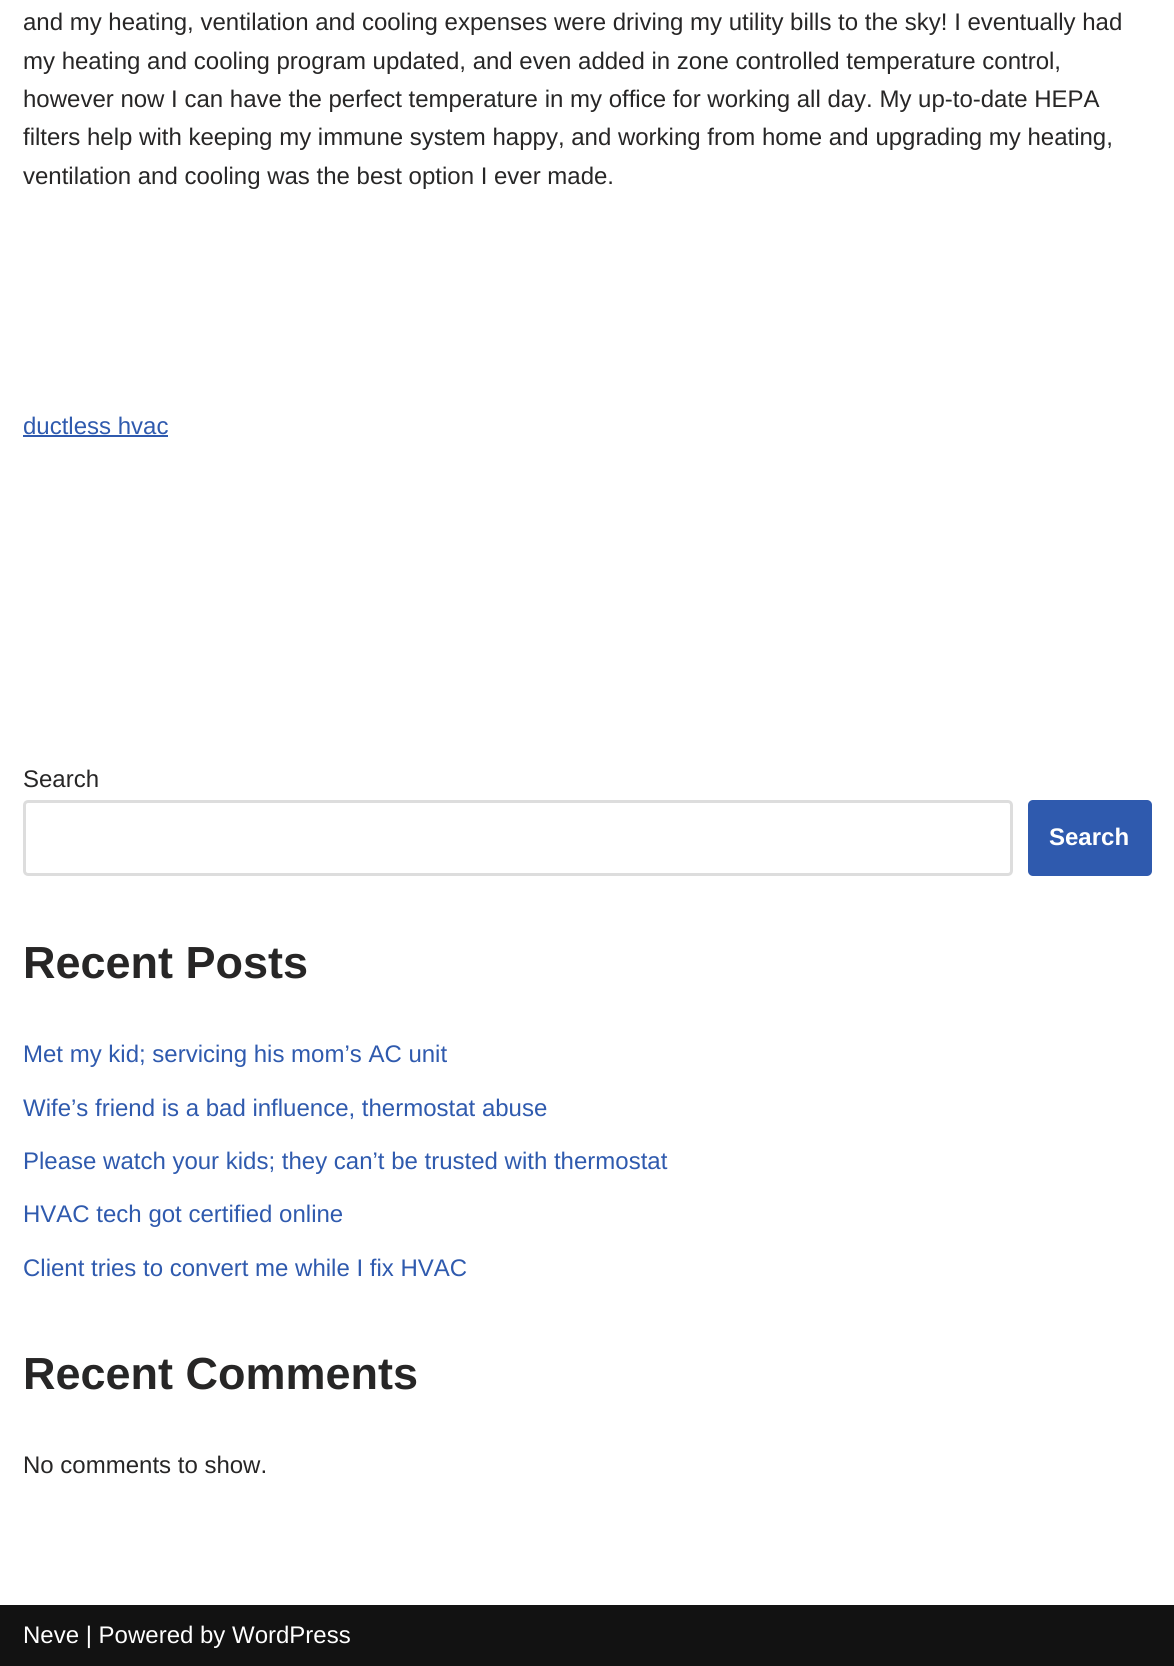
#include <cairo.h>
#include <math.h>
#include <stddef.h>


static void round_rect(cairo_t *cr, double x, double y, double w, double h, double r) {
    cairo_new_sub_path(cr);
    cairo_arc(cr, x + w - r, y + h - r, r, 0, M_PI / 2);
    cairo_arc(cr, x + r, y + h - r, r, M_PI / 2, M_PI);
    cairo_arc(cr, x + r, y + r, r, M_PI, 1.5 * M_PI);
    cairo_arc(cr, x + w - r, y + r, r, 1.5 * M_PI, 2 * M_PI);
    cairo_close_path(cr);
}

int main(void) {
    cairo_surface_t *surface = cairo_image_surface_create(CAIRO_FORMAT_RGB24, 1174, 1666);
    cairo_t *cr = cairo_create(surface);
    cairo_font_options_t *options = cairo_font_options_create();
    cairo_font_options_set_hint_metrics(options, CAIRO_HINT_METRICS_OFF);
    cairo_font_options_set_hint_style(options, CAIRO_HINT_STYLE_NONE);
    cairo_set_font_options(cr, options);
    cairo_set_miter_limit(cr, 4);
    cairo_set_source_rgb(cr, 1, 1, 1);
    cairo_paint(cr);
    cairo_select_font_face(cr, "Liberation Sans", CAIRO_FONT_SLANT_NORMAL, CAIRO_FONT_WEIGHT_NORMAL);
    cairo_set_font_size(cr, 24);
    cairo_set_source_rgb(cr, 0.153, 0.149, 0.149);
    cairo_move_to(cr, 23, 30);
    cairo_show_text(cr, "and my heating, ventilation and cooling expenses were driving my utility bills to the sky! I eventually had");
    cairo_move_to(cr, 23, 69);
    cairo_show_text(cr, "my heating and cooling program updated, and even added in zone controlled temperature control,");
    cairo_move_to(cr, 23, 107);
    cairo_show_text(cr, "however now I can have the perfect temperature in my office for working all day. My up-to-date HEPA");
    cairo_move_to(cr, 23, 145);
    cairo_show_text(cr, "filters help with keeping my immune system happy, and working from home and upgrading my heating,");
    cairo_move_to(cr, 23, 184);
    cairo_show_text(cr, "ventilation and cooling was the best option I ever made.");
    cairo_set_source_rgb(cr, 0.184, 0.353, 0.682);
    cairo_move_to(cr, 23, 434);
    cairo_show_text(cr, "ductless hvac");
    cairo_rectangle(cr, 23, 435, 145, 2);
    cairo_fill(cr);
    cairo_set_source_rgb(cr, 0.153, 0.149, 0.149);
    cairo_move_to(cr, 23, 787);
    cairo_show_text(cr, "Search");
    round_rect(cr, 24.5, 801.5, 987, 73, 3.5);
    cairo_set_source_rgb(cr, 0.867, 0.867, 0.867);
    cairo_set_line_width(cr, 3);
    cairo_stroke(cr);
    cairo_set_source_rgb(cr, 0.184, 0.353, 0.682);
    round_rect(cr, 1028, 800, 124, 76, 5);
    cairo_fill(cr);
    cairo_select_font_face(cr, "Liberation Sans", CAIRO_FONT_SLANT_NORMAL, CAIRO_FONT_WEIGHT_BOLD);
    cairo_set_source_rgb(cr, 1, 1, 1);
    cairo_move_to(cr, 1049, 845);
    cairo_show_text(cr, "Search");
    cairo_set_font_size(cr, 45);
    cairo_set_source_rgb(cr, 0.153, 0.149, 0.149);
    cairo_move_to(cr, 23, 978);
    cairo_show_text(cr, "Recent Posts");
    cairo_select_font_face(cr, "Liberation Sans", CAIRO_FONT_SLANT_NORMAL, CAIRO_FONT_WEIGHT_NORMAL);
    cairo_set_font_size(cr, 24);
    cairo_set_source_rgb(cr, 0.184, 0.353, 0.682);
    cairo_move_to(cr, 23, 1062);
    cairo_show_text(cr, "Met my kid; servicing his mom’s AC unit");
    cairo_move_to(cr, 23, 1116);
    cairo_show_text(cr, "Wife’s friend is a bad influence, thermostat abuse");
    cairo_move_to(cr, 23, 1169);
    cairo_show_text(cr, "Please watch your kids; they can’t be trusted with thermostat");
    cairo_move_to(cr, 23, 1222);
    cairo_show_text(cr, "HVAC tech got certified online");
    cairo_move_to(cr, 23, 1276);
    cairo_show_text(cr, "Client tries to convert me while I fix HVAC");
    cairo_select_font_face(cr, "Liberation Sans", CAIRO_FONT_SLANT_NORMAL, CAIRO_FONT_WEIGHT_BOLD);
    cairo_set_font_size(cr, 45);
    cairo_set_source_rgb(cr, 0.153, 0.149, 0.149);
    cairo_move_to(cr, 23, 1389);
    cairo_show_text(cr, "Recent Comments");
    cairo_select_font_face(cr, "Liberation Sans", CAIRO_FONT_SLANT_NORMAL, CAIRO_FONT_WEIGHT_NORMAL);
    cairo_set_font_size(cr, 24);
    cairo_move_to(cr, 23, 1473);
    cairo_show_text(cr, "No comments to show.");
    cairo_set_source_rgb(cr, 0.071, 0.071, 0.071);
    cairo_rectangle(cr, 0, 1605, 1174, 61);
    cairo_fill(cr);
    cairo_set_source_rgb(cr, 1, 1, 1);
    cairo_move_to(cr, 23, 1643);
    cairo_show_text(cr, "Neve | Powered by WordPress");
    cairo_surface_write_to_png(surface, "page.png");
    cairo_font_options_destroy(options);
    cairo_destroy(cr);
    cairo_surface_destroy(surface);
    return 0;
}
